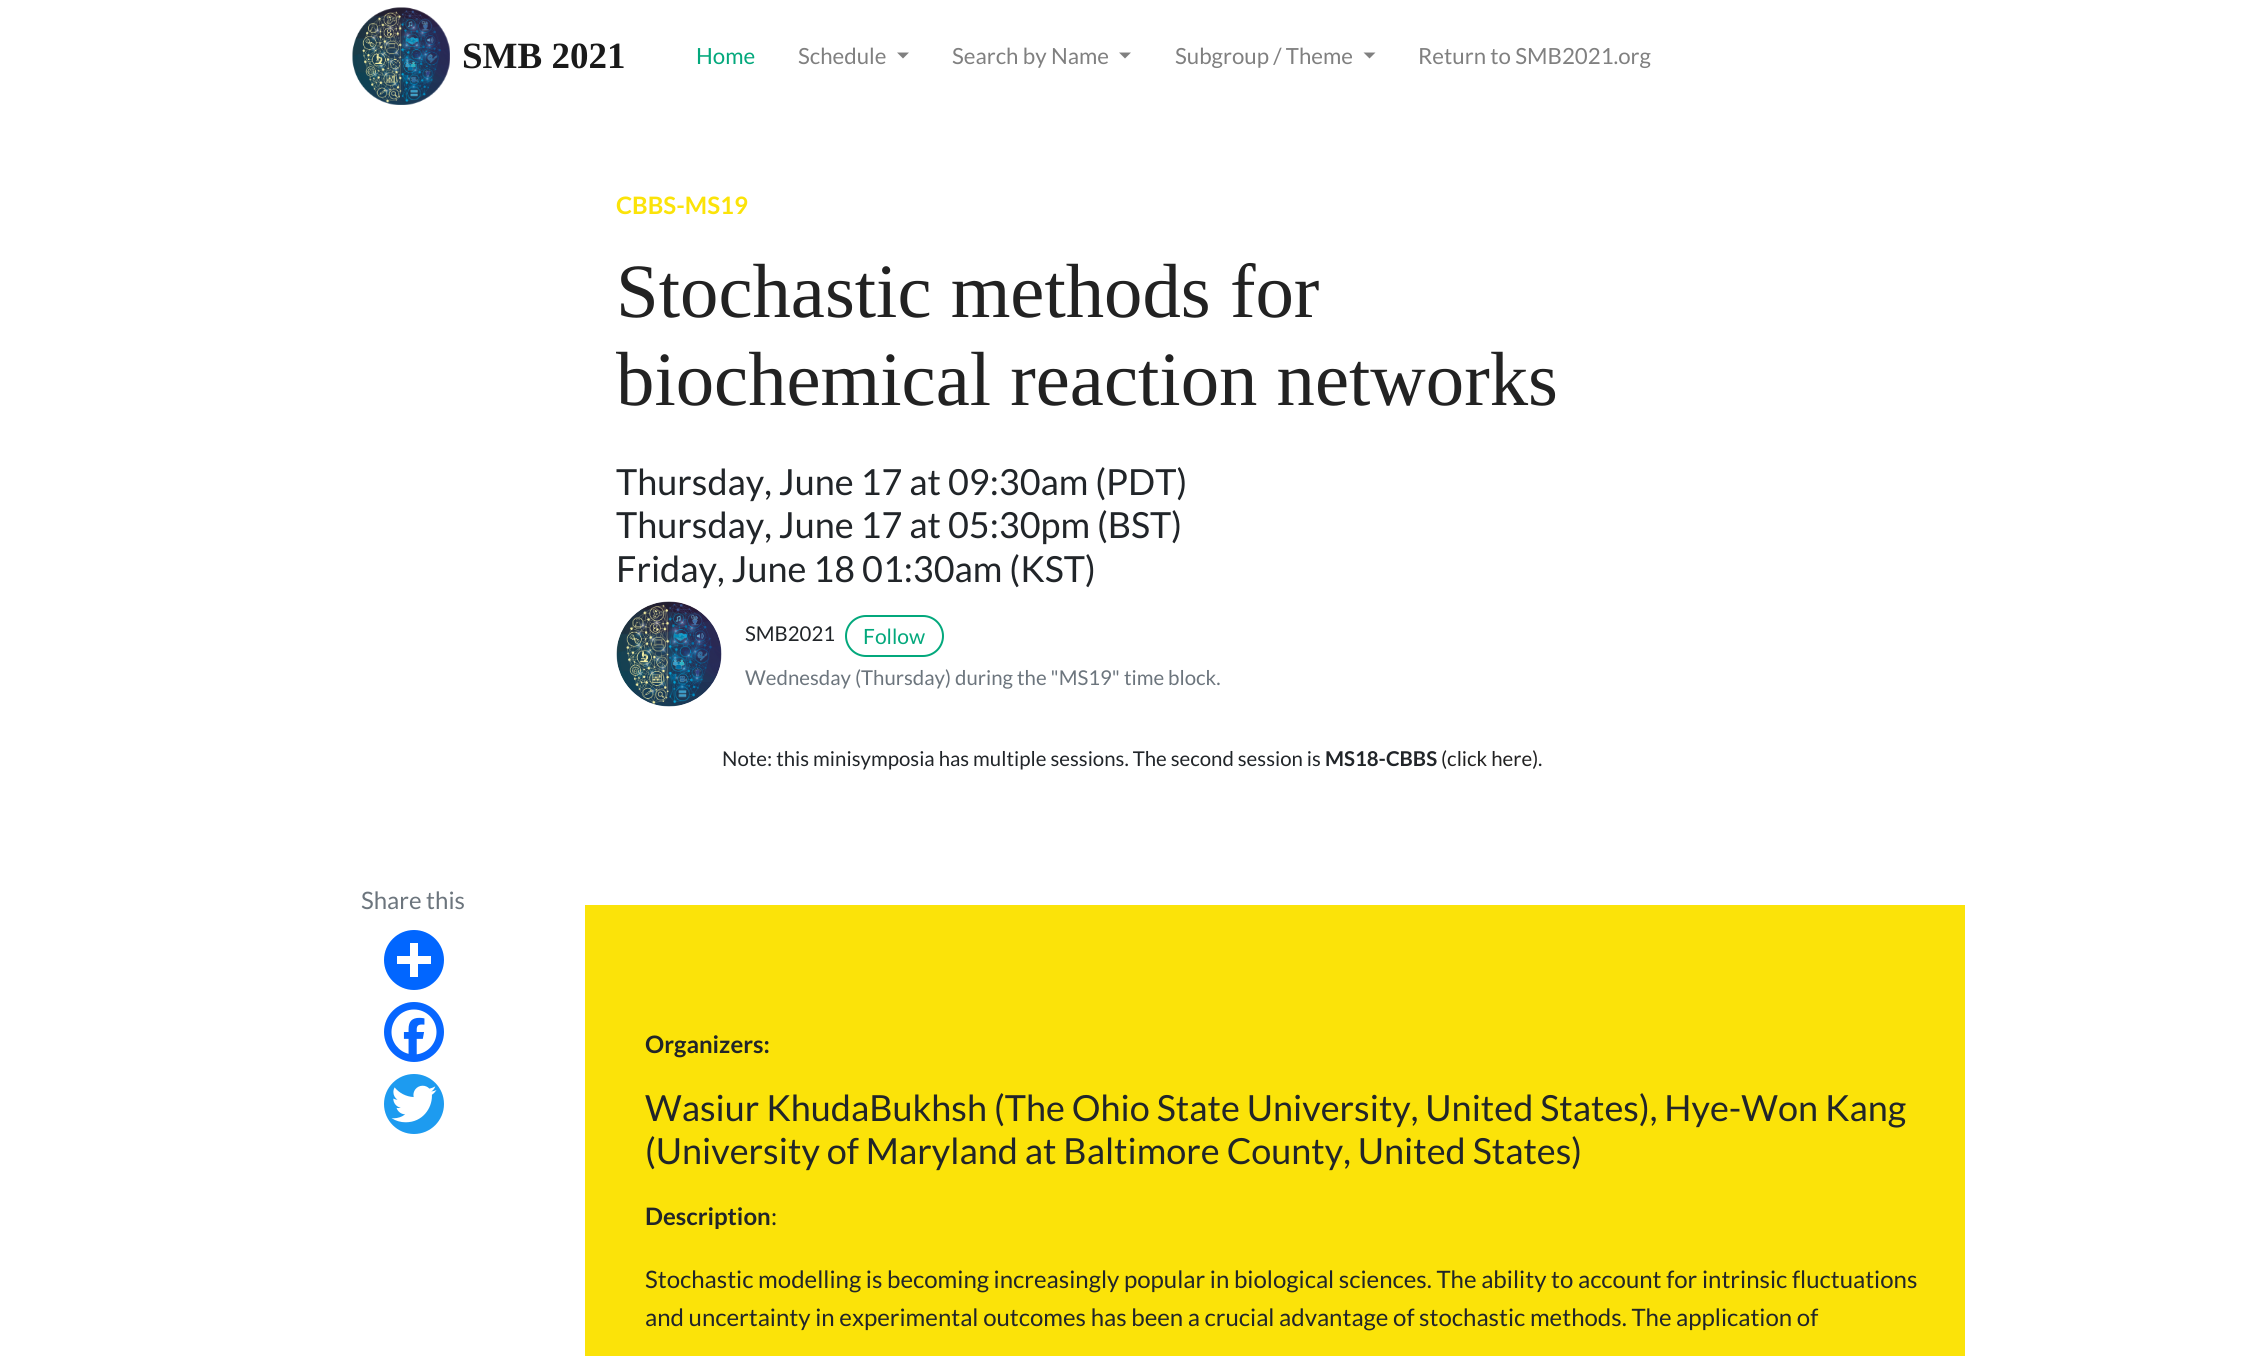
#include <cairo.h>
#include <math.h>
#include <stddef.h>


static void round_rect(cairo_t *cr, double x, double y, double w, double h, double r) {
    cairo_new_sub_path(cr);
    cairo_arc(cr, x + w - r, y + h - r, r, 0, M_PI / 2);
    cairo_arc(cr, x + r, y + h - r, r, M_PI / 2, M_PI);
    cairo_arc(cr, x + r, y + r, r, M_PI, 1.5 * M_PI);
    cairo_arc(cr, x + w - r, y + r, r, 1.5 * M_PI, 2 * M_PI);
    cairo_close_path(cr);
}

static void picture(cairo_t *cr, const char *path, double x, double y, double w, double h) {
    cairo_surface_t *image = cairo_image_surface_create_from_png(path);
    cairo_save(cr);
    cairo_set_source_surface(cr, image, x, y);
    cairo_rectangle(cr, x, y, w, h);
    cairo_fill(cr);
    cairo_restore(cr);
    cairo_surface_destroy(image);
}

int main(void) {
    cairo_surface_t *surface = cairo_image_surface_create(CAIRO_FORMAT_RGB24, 2264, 1356);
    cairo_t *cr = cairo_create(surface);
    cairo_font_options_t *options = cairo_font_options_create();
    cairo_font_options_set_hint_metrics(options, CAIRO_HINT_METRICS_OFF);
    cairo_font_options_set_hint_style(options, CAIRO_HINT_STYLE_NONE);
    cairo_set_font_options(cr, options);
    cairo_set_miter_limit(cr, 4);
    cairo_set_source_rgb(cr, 1, 1, 1);
    cairo_paint(cr);
    picture(cr, "img1.png", 352, 7, 98, 98);
    cairo_select_font_face(cr, "Liberation Serif", CAIRO_FONT_SLANT_NORMAL, CAIRO_FONT_WEIGHT_BOLD);
    cairo_set_font_size(cr, 37);
    cairo_set_source_rgb(cr, 0.102, 0.102, 0.102);
    cairo_move_to(cr, 462, 68);
    cairo_show_text(cr, "SMB 2021");
    cairo_select_font_face(cr, "Lato", CAIRO_FONT_SLANT_NORMAL, CAIRO_FONT_WEIGHT_NORMAL);
    cairo_set_font_size(cr, 22.25);
    cairo_set_source_rgb(cr, 0.012, 0.659, 0.486);
    cairo_move_to(cr, 696, 64);
    cairo_show_text(cr, "Home");
    cairo_set_source_rgb(cr, 0.502, 0.502, 0.502);
    cairo_move_to(cr, 798, 64);
    cairo_show_text(cr, "Schedule");
    cairo_new_path(cr);
    cairo_move_to(cr, 897, 52.5);
    cairo_line_to(cr, 909, 52.5);
    cairo_line_to(cr, 903, 58.5);
    cairo_close_path(cr);
    cairo_fill(cr);
    cairo_move_to(cr, 952, 64);
    cairo_show_text(cr, "Search by Name");
    cairo_new_path(cr);
    cairo_move_to(cr, 1119, 52.5);
    cairo_line_to(cr, 1131, 52.5);
    cairo_line_to(cr, 1125, 58.5);
    cairo_close_path(cr);
    cairo_fill(cr);
    cairo_move_to(cr, 1175, 64);
    cairo_show_text(cr, "Subgroup / Theme");
    cairo_new_path(cr);
    cairo_move_to(cr, 1363.5, 52.5);
    cairo_line_to(cr, 1375.5, 52.5);
    cairo_line_to(cr, 1369.5, 58.5);
    cairo_close_path(cr);
    cairo_fill(cr);
    cairo_move_to(cr, 1418, 64);
    cairo_show_text(cr, "Return to SMB2021.org");
    cairo_select_font_face(cr, "Lato", CAIRO_FONT_SLANT_NORMAL, CAIRO_FONT_WEIGHT_BOLD);
    cairo_set_font_size(cr, 24);
    cairo_set_source_rgb(cr, 0.984, 0.89, 0.039);
    cairo_move_to(cr, 616, 214);
    cairo_show_text(cr, "CBBS-MS19");
    cairo_select_font_face(cr, "Liberation Serif", CAIRO_FONT_SLANT_NORMAL, CAIRO_FONT_WEIGHT_NORMAL);
    cairo_set_font_size(cr, 76.75);
    cairo_set_source_rgb(cr, 0.133, 0.133, 0.133);
    cairo_move_to(cr, 616, 317);
    cairo_show_text(cr, "Stochastic methods for");
    cairo_move_to(cr, 616, 405);
    cairo_show_text(cr, "biochemical reaction networks");
    cairo_select_font_face(cr, "Lato", CAIRO_FONT_SLANT_NORMAL, CAIRO_FONT_WEIGHT_NORMAL);
    cairo_set_font_size(cr, 36);
    cairo_set_source_rgb(cr, 0.129, 0.145, 0.161);
    cairo_move_to(cr, 616, 495);
    cairo_show_text(cr, "Thursday, June 17 at 09:30am (PDT)");
    cairo_move_to(cr, 616, 538);
    cairo_show_text(cr, "Thursday, June 17 at 05:30pm (BST)");
    cairo_move_to(cr, 616, 582);
    cairo_show_text(cr, "Friday, June 18 01:30am (KST)");
    picture(cr, "img2.png", 616, 601, 106, 106);
    cairo_set_font_size(cr, 20.4);
    cairo_move_to(cr, 745, 641);
    cairo_show_text(cr, "SMB2021");
    round_rect(cr, 846, 616, 97, 40, 20);
    cairo_set_source_rgb(cr, 0.012, 0.659, 0.486);
    cairo_stroke(cr);
    cairo_set_font_size(cr, 21);
    cairo_move_to(cr, 863, 644);
    cairo_show_text(cr, "Follow");
    cairo_set_font_size(cr, 20.4);
    cairo_set_source_rgb(cr, 0.424, 0.459, 0.49);
    cairo_move_to(cr, 745, 685);
    cairo_show_text(cr, "Wednesday (Thursday) during the \"MS19\" time block.");
    cairo_set_source_rgb(cr, 0.129, 0.145, 0.161);
    cairo_move_to(cr, 722, 766);
    cairo_show_text(cr, "Note: this minisymposia has multiple sessions. The second session is");
    cairo_select_font_face(cr, "Lato", CAIRO_FONT_SLANT_NORMAL, CAIRO_FONT_WEIGHT_BOLD);
    cairo_move_to(cr, 1325, 766);
    cairo_show_text(cr, "MS18-CBBS");
    cairo_select_font_face(cr, "Lato", CAIRO_FONT_SLANT_NORMAL, CAIRO_FONT_WEIGHT_NORMAL);
    cairo_set_source_rgb(cr, 0.133, 0.133, 0.133);
    cairo_move_to(cr, 1441, 766);
    cairo_show_text(cr, "(click here)");
    cairo_set_source_rgb(cr, 0.129, 0.145, 0.161);
    cairo_move_to(cr, 1538, 766);
    cairo_show_text(cr, ".");
    cairo_set_font_size(cr, 24);
    cairo_set_source_rgb(cr, 0.424, 0.459, 0.49);
    cairo_move_to(cr, 361, 909);
    cairo_show_text(cr, "Share this");
    cairo_set_source_rgb(cr, 0.004, 0.4, 1);
    cairo_new_path(cr);
    cairo_arc(cr, 414, 960, 30, 0, 2 * M_PI);
    cairo_fill(cr);
    cairo_set_source_rgb(cr, 1, 1, 1);
    cairo_rectangle(cr, 410, 943, 8, 34);
    cairo_fill(cr);
    cairo_rectangle(cr, 397, 956, 34, 8);
    cairo_fill(cr);
    cairo_set_source_rgb(cr, 0.031, 0.4, 1);
    cairo_arc(cr, 414, 1032, 30, 0, 2 * M_PI);
    cairo_fill(cr);
    picture(cr, "img3.png", 391, 1009, 46, 46);
    cairo_set_source_rgb(cr, 0.114, 0.608, 0.941);
    cairo_arc(cr, 414, 1104, 30, 0, 2 * M_PI);
    cairo_fill(cr);
    picture(cr, "img4.png", 391, 1085, 46, 38);
    cairo_set_source_rgb(cr, 0.984, 0.89, 0.039);
    cairo_rectangle(cr, 585, 905, 1380, 451);
    cairo_fill(cr);
    cairo_select_font_face(cr, "Lato", CAIRO_FONT_SLANT_NORMAL, CAIRO_FONT_WEIGHT_BOLD);
    cairo_set_source_rgb(cr, 0.129, 0.145, 0.161);
    cairo_move_to(cr, 645, 1053);
    cairo_show_text(cr, "Organizers:");
    cairo_select_font_face(cr, "Lato", CAIRO_FONT_SLANT_NORMAL, CAIRO_FONT_WEIGHT_NORMAL);
    cairo_set_font_size(cr, 36);
    cairo_move_to(cr, 645, 1121);
    cairo_show_text(cr, "Wasiur KhudaBukhsh (The Ohio State University, United States), Hye-Won Kang");
    cairo_move_to(cr, 645, 1164);
    cairo_show_text(cr, "(University of Maryland at Baltimore County, United States)");
    cairo_select_font_face(cr, "Lato", CAIRO_FONT_SLANT_NORMAL, CAIRO_FONT_WEIGHT_BOLD);
    cairo_set_font_size(cr, 24);
    cairo_move_to(cr, 645, 1225);
    cairo_show_text(cr, "Description");
    cairo_select_font_face(cr, "Lato", CAIRO_FONT_SLANT_NORMAL, CAIRO_FONT_WEIGHT_NORMAL);
    cairo_move_to(cr, 771, 1225);
    cairo_show_text(cr, ":");
    cairo_move_to(cr, 645, 1288);
    cairo_show_text(cr, "Stochastic modelling is becoming increasingly popular in biological sciences. The ability to account for intrinsic fluctuations");
    cairo_move_to(cr, 645, 1326);
    cairo_show_text(cr, "and uncertainty in experimental outcomes has been a crucial advantage of stochastic methods. The application of");
    cairo_surface_write_to_png(surface, "page.png");
    cairo_font_options_destroy(options);
    cairo_destroy(cr);
    cairo_surface_destroy(surface);
    return 0;
}
